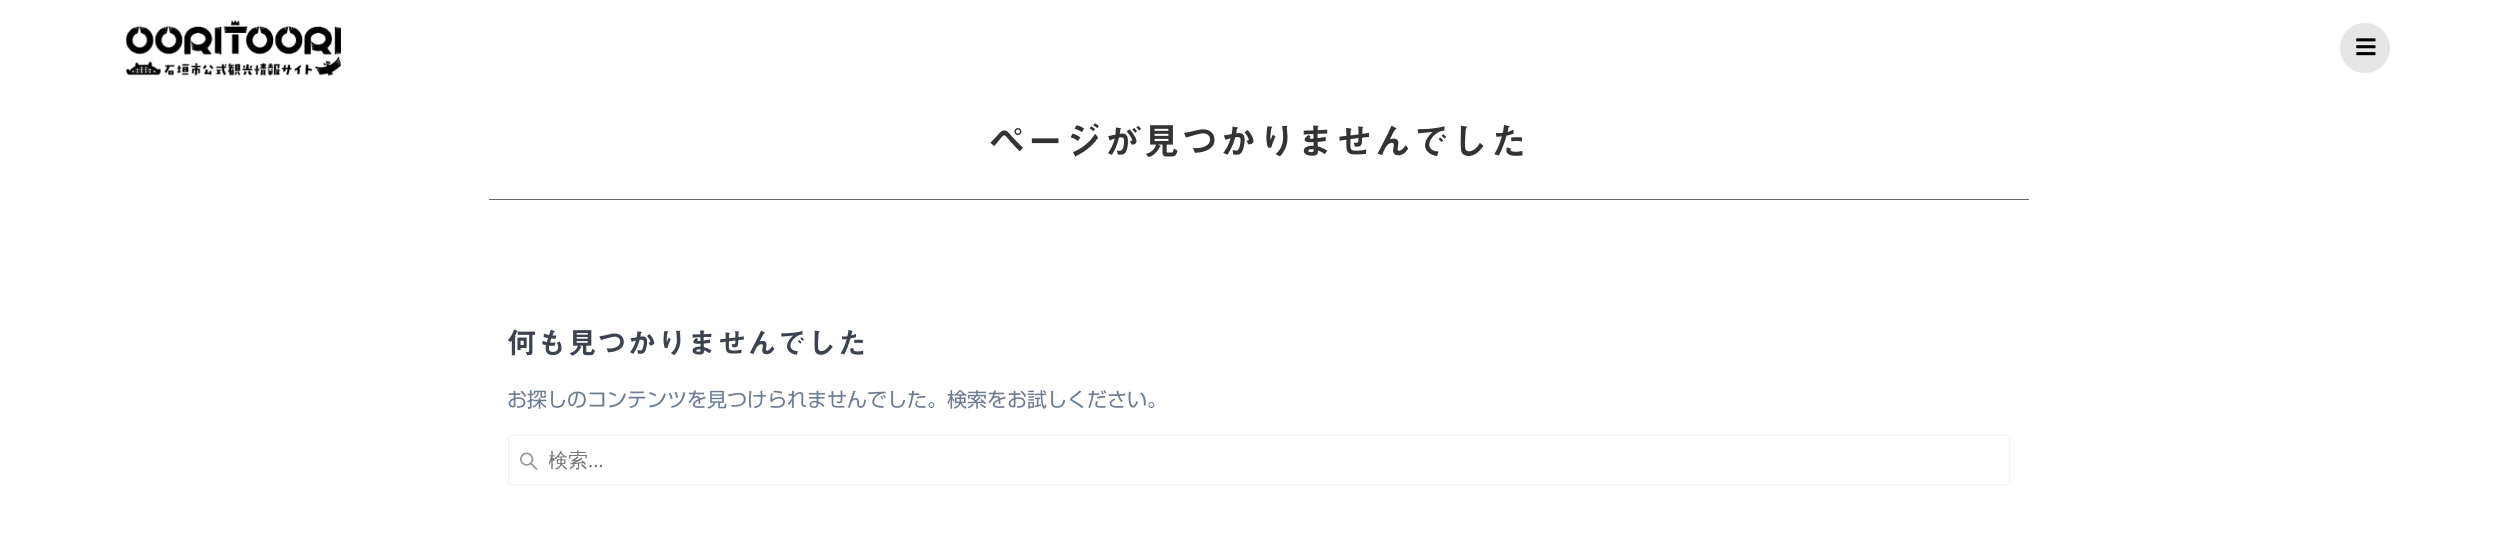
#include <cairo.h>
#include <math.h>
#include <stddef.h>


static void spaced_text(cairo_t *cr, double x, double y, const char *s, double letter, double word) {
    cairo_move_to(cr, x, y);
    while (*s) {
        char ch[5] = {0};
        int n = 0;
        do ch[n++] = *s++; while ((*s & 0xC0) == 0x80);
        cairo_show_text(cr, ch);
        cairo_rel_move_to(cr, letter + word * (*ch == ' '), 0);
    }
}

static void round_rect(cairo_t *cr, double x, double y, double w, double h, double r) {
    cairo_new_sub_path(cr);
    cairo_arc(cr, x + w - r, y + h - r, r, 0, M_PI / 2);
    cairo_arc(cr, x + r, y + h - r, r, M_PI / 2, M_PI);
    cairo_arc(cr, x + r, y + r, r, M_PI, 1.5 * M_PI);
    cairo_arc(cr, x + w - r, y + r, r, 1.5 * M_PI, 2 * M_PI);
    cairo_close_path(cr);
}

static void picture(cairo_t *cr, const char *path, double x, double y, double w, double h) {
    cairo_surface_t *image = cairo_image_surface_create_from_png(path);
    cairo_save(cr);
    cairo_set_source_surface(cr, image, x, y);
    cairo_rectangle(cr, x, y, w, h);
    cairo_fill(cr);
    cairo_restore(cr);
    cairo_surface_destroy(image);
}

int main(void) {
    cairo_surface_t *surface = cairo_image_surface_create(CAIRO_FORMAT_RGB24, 2516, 558);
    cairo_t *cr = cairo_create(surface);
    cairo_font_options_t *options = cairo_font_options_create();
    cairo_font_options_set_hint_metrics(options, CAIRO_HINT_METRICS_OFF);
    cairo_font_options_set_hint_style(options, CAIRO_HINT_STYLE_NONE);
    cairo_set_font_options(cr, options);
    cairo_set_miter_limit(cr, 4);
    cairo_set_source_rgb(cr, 1, 1, 1);
    cairo_paint(cr);
    picture(cr, "img1.png", 125, 20, 216, 57);
    cairo_set_source_rgb(cr, 0.902, 0.902, 0.902);
    cairo_arc(cr, 2365, 48, 25, 0, 2 * M_PI);
    cairo_fill(cr);
    picture(cr, "img2.png", 2356, 38, 20, 18);
    cairo_set_source_rgb(cr, 0.4, 0.4, 0.4);
    cairo_rectangle(cr, 489, 199, 1540, 1);
    cairo_fill(cr);
    cairo_select_font_face(cr, "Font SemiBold", CAIRO_FONT_SLANT_NORMAL, CAIRO_FONT_WEIGHT_NORMAL);
    cairo_set_font_size(cr, 37.5);
    cairo_set_source_rgb(cr, 0.2, 0.2, 0.2);
    spaced_text(cr, 988, 155, "ページが見つかりませんでした", 1.1, 0);
    cairo_set_font_size(cr, 30);
    cairo_set_source_rgb(cr, 0.235, 0.259, 0.31);
    cairo_move_to(cr, 507, 354);
    cairo_show_text(cr, "何も見つかりませんでした");
    cairo_select_font_face(cr, "Font", CAIRO_FONT_SLANT_NORMAL, CAIRO_FONT_WEIGHT_NORMAL);
    cairo_set_font_size(cr, 20);
    cairo_set_source_rgb(cr, 0.42, 0.486, 0.576);
    cairo_move_to(cr, 507, 407);
    cairo_show_text(cr, "お探しのコンテンツを見つけられませんでした。検索をお試しください。");
    picture(cr, "img3.png", 520, 452, 18, 18);
    round_rect(cr, 508.5, 435.5, 1501, 49, 3.5);
    cairo_set_source_rgb(cr, 0.945, 0.945, 0.945);
    cairo_set_line_width(cr, 1);
    cairo_stroke(cr);
    cairo_save(cr);
    cairo_rectangle(cr, 549, 446, 1440, 29);
    cairo_clip(cr);
    cairo_select_font_face(cr, "WenQuanYi Zen Hei Medium", CAIRO_FONT_SLANT_NORMAL, CAIRO_FONT_WEIGHT_NORMAL);
    cairo_set_source_rgb(cr, 0.459, 0.459, 0.459);
    cairo_move_to(cr, 548, 467);
    cairo_show_text(cr, "検索");
    cairo_restore(cr);
    cairo_select_font_face(cr, "Open Sans", CAIRO_FONT_SLANT_NORMAL, CAIRO_FONT_WEIGHT_NORMAL);
    cairo_set_source_rgb(cr, 0.459, 0.459, 0.459);
    cairo_move_to(cr, 588, 467);
    cairo_show_text(cr, "…");
    cairo_surface_write_to_png(surface, "page.png");
    cairo_font_options_destroy(options);
    cairo_destroy(cr);
    cairo_surface_destroy(surface);
    return 0;
}
